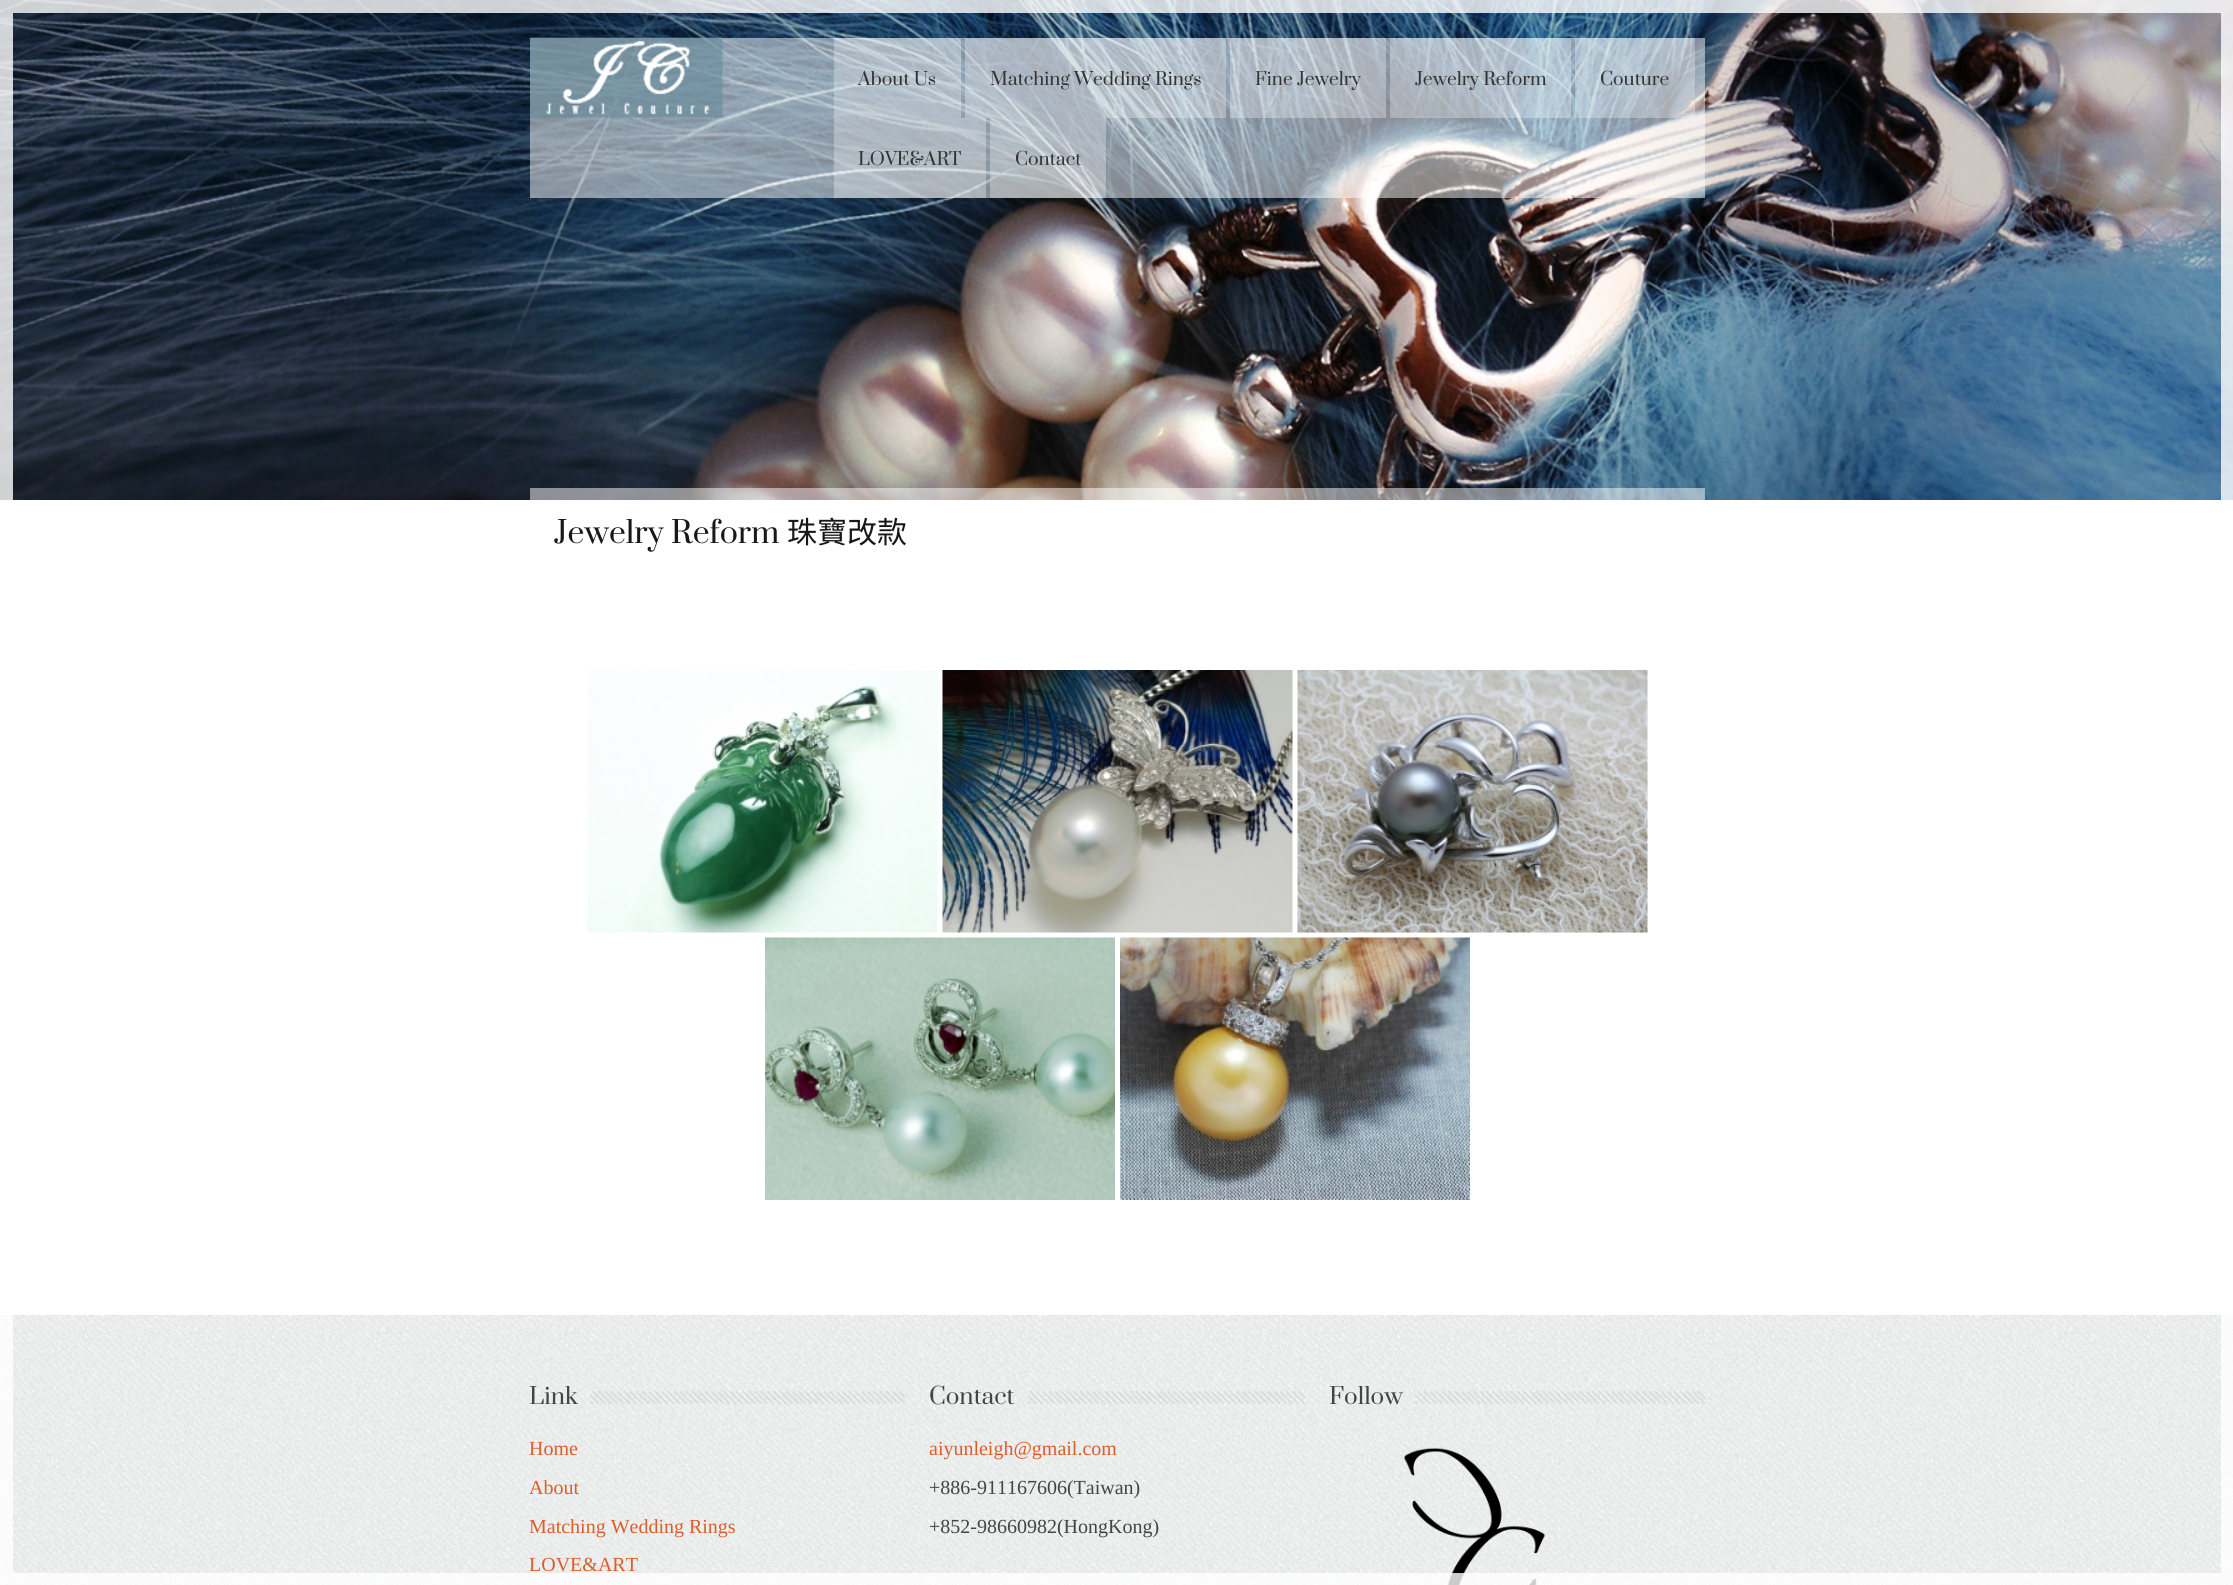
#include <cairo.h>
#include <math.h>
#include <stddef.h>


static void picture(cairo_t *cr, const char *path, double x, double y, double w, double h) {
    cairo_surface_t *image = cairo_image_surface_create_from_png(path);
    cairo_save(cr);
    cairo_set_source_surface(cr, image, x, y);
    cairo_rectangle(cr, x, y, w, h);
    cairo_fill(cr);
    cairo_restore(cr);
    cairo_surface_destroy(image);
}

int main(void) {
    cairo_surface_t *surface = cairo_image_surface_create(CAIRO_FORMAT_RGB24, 2233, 1585);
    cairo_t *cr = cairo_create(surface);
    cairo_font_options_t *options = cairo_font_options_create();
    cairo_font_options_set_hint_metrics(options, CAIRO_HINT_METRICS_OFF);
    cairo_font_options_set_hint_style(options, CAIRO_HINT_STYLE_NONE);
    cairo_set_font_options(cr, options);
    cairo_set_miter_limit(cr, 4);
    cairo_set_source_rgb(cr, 1, 1, 1);
    cairo_paint(cr);
    picture(cr, "img1.png", 0, 0, 2233, 500);
    cairo_set_source_rgba(cr, 1, 1, 1, 0.8);
    cairo_rectangle(cr, 0, 0, 2233, 13);
    cairo_fill(cr);
    picture(cr, "img8.png", 0, 1315, 2233, 270);
    cairo_rectangle(cr, 0, 13, 13, 1560);
    cairo_fill(cr);
    cairo_set_source_rgba(cr, 1, 1, 1, 0.5);
    cairo_rectangle(cr, 530, 38, 1175, 160);
    cairo_fill(cr);
    picture(cr, "img2.png", 530, 37, 193, 81);
    cairo_set_source_rgba(cr, 1, 1, 1, 0.3);
    cairo_rectangle(cr, 834, 38, 127, 80);
    cairo_fill(cr);
    cairo_select_font_face(cr, "Prata", CAIRO_FONT_SLANT_NORMAL, CAIRO_FONT_WEIGHT_NORMAL);
    cairo_set_font_size(cr, 17.5);
    cairo_set_source_rgb(cr, 0.2, 0.2, 0.2);
    cairo_move_to(cr, 858, 85);
    cairo_show_text(cr, "About Us");
    cairo_set_source_rgba(cr, 1, 1, 1, 0.3);
    cairo_rectangle(cr, 965, 38, 261, 80);
    cairo_fill(cr);
    cairo_set_source_rgb(cr, 0.2, 0.2, 0.2);
    cairo_move_to(cr, 990, 85);
    cairo_show_text(cr, "Matching Wedding Rings");
    cairo_set_source_rgba(cr, 1, 1, 1, 0.3);
    cairo_rectangle(cr, 1230, 38, 156, 80);
    cairo_fill(cr);
    cairo_set_source_rgb(cr, 0.2, 0.2, 0.2);
    cairo_move_to(cr, 1255, 85);
    cairo_show_text(cr, "Fine Jewelry");
    cairo_set_source_rgba(cr, 1, 1, 1, 0.3);
    cairo_rectangle(cr, 1390, 38, 181, 80);
    cairo_fill(cr);
    cairo_set_source_rgb(cr, 0.2, 0.2, 0.2);
    cairo_move_to(cr, 1415, 85);
    cairo_show_text(cr, "Jewelry Reform");
    cairo_set_source_rgba(cr, 1, 1, 1, 0.3);
    cairo_rectangle(cr, 1575, 38, 120, 80);
    cairo_fill(cr);
    cairo_set_source_rgb(cr, 0.2, 0.2, 0.2);
    cairo_move_to(cr, 1600, 85);
    cairo_show_text(cr, "Couture");
    cairo_set_source_rgba(cr, 1, 1, 1, 0.3);
    cairo_rectangle(cr, 834, 118, 152, 80);
    cairo_fill(cr);
    cairo_set_source_rgb(cr, 0.2, 0.2, 0.2);
    cairo_move_to(cr, 858, 165);
    cairo_show_text(cr, "LOVE&ART");
    cairo_set_source_rgba(cr, 1, 1, 1, 0.3);
    cairo_rectangle(cr, 990, 118, 116, 80);
    cairo_fill(cr);
    cairo_set_source_rgb(cr, 0.2, 0.2, 0.2);
    cairo_move_to(cr, 1015, 165);
    cairo_show_text(cr, "Contact");
    cairo_set_source_rgba(cr, 1, 1, 1, 0.5);
    cairo_rectangle(cr, 530, 488, 1175, 12);
    cairo_fill(cr);
    cairo_set_font_size(cr, 30);
    cairo_set_source_rgb(cr, 0.094, 0.094, 0.094);
    cairo_move_to(cr, 554, 543);
    cairo_show_text(cr, "Jewelry Reform");
    cairo_select_font_face(cr, "Noto Sans CJK TC", CAIRO_FONT_SLANT_NORMAL, CAIRO_FONT_WEIGHT_NORMAL);
    cairo_move_to(cr, 787, 543);
    cairo_show_text(cr, "珠寶改款");
    picture(cr, "img3.png", 587, 670, 351, 263);
    picture(cr, "img4.png", 942, 670, 351, 263);
    picture(cr, "img5.png", 1297, 670, 351, 263);
    picture(cr, "img6.png", 765, 937, 350, 263);
    picture(cr, "img7.png", 1120, 937, 350, 263);
    cairo_set_source_rgba(cr, 1, 1, 1, 0.8);
    cairo_rectangle(cr, 2221, 13, 12, 1560);
    cairo_fill(cr);
    picture(cr, "img9.png", 590, 1391, 315, 13);
    picture(cr, "img10.png", 530, 1377, 60, 39);
    cairo_select_font_face(cr, "Prata", CAIRO_FONT_SLANT_NORMAL, CAIRO_FONT_WEIGHT_NORMAL);
    cairo_set_font_size(cr, 22.5);
    cairo_set_source_rgb(cr, 0.267, 0.267, 0.267);
    cairo_move_to(cr, 529, 1404);
    cairo_show_text(cr, "Link");
    cairo_select_font_face(cr, "Liberation Serif", CAIRO_FONT_SLANT_NORMAL, CAIRO_FONT_WEIGHT_NORMAL);
    cairo_set_font_size(cr, 20);
    cairo_set_source_rgb(cr, 0.863, 0.365, 0.165);
    cairo_move_to(cr, 529, 1455);
    cairo_show_text(cr, "Home");
    cairo_move_to(cr, 529, 1494);
    cairo_show_text(cr, "About");
    cairo_move_to(cr, 529, 1533);
    cairo_show_text(cr, "Matching Wedding Rings");
    cairo_move_to(cr, 529, 1571);
    cairo_show_text(cr, "LOVE&ART");
    picture(cr, "img11.png", 1028, 1391, 277, 13);
    cairo_set_source_rgb(cr, 0.945, 0.945, 0.945);
    cairo_rectangle(cr, 1027, 1378, 1, 38);
    cairo_fill(cr);
    picture(cr, "img12.png", 930, 1377, 98, 40);
    cairo_select_font_face(cr, "Prata", CAIRO_FONT_SLANT_NORMAL, CAIRO_FONT_WEIGHT_NORMAL);
    cairo_set_font_size(cr, 22.5);
    cairo_set_source_rgb(cr, 0.267, 0.267, 0.267);
    cairo_move_to(cr, 929, 1404);
    cairo_show_text(cr, "Contact");
    cairo_select_font_face(cr, "Liberation Serif", CAIRO_FONT_SLANT_NORMAL, CAIRO_FONT_WEIGHT_NORMAL);
    cairo_set_font_size(cr, 20);
    cairo_set_source_rgb(cr, 0.863, 0.365, 0.165);
    cairo_move_to(cr, 929, 1455);
    cairo_show_text(cr, "aiyunleigh@gmail.com");
    cairo_set_source_rgb(cr, 0.267, 0.267, 0.267);
    cairo_move_to(cr, 929, 1494);
    cairo_show_text(cr, "+886-911167606(Taiwan)");
    cairo_move_to(cr, 929, 1533);
    cairo_show_text(cr, "+852-98660982(HongKong)");
    picture(cr, "img13.png", 1415, 1391, 290, 13);
    picture(cr, "img14.png", 1330, 1377, 85, 40);
    cairo_select_font_face(cr, "Prata", CAIRO_FONT_SLANT_NORMAL, CAIRO_FONT_WEIGHT_NORMAL);
    cairo_set_font_size(cr, 22.5);
    cairo_move_to(cr, 1329, 1404);
    cairo_show_text(cr, "Follow");
    picture(cr, "img15.png", 1403, 1447, 142, 138);
    cairo_set_source_rgba(cr, 1, 1, 1, 0.8);
    cairo_rectangle(cr, 0, 1573, 2233, 12);
    cairo_fill(cr);
    cairo_surface_write_to_png(surface, "page.png");
    cairo_font_options_destroy(options);
    cairo_destroy(cr);
    cairo_surface_destroy(surface);
    return 0;
}
